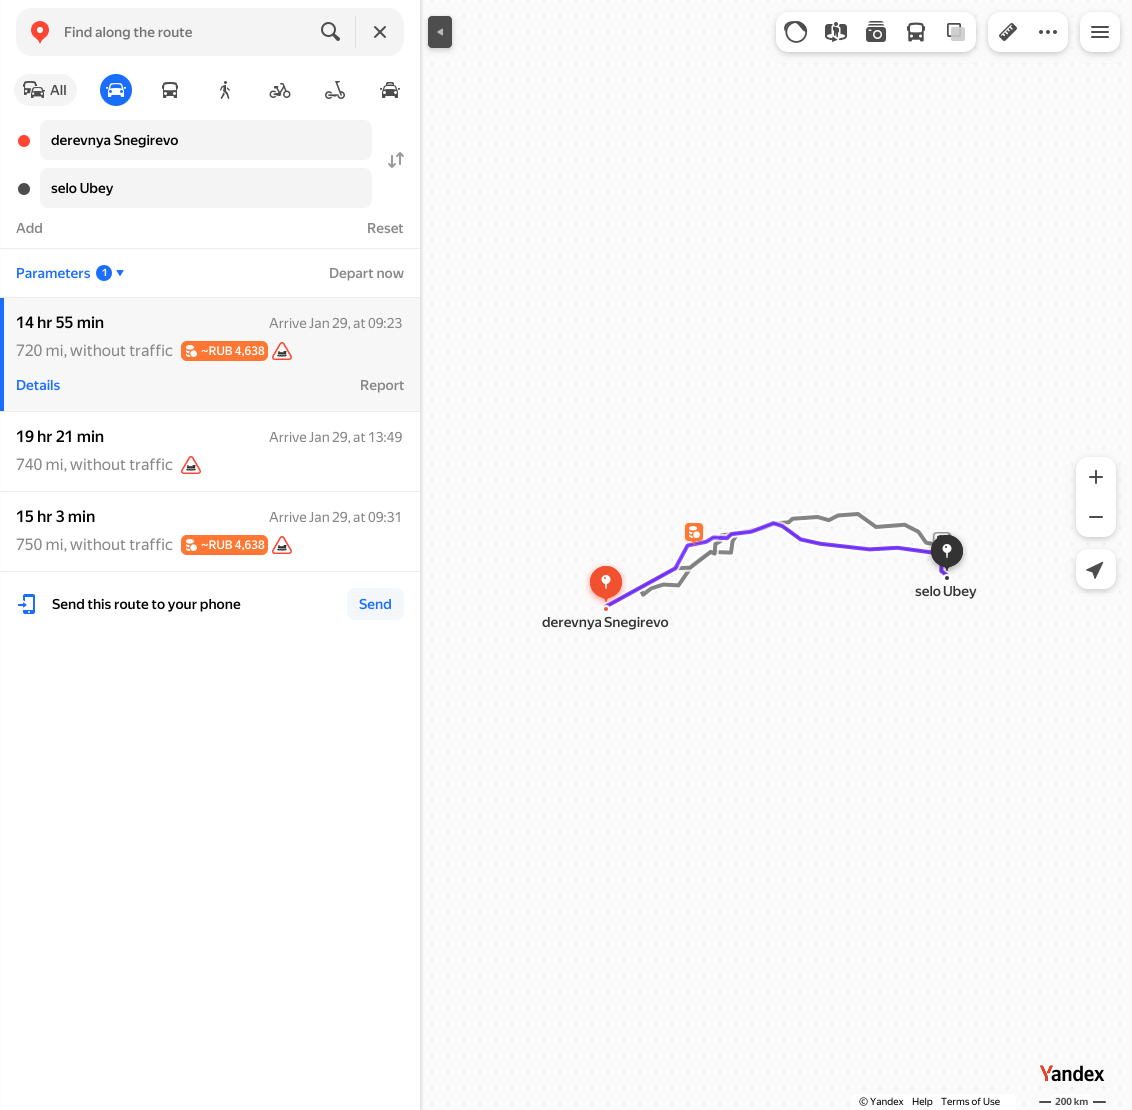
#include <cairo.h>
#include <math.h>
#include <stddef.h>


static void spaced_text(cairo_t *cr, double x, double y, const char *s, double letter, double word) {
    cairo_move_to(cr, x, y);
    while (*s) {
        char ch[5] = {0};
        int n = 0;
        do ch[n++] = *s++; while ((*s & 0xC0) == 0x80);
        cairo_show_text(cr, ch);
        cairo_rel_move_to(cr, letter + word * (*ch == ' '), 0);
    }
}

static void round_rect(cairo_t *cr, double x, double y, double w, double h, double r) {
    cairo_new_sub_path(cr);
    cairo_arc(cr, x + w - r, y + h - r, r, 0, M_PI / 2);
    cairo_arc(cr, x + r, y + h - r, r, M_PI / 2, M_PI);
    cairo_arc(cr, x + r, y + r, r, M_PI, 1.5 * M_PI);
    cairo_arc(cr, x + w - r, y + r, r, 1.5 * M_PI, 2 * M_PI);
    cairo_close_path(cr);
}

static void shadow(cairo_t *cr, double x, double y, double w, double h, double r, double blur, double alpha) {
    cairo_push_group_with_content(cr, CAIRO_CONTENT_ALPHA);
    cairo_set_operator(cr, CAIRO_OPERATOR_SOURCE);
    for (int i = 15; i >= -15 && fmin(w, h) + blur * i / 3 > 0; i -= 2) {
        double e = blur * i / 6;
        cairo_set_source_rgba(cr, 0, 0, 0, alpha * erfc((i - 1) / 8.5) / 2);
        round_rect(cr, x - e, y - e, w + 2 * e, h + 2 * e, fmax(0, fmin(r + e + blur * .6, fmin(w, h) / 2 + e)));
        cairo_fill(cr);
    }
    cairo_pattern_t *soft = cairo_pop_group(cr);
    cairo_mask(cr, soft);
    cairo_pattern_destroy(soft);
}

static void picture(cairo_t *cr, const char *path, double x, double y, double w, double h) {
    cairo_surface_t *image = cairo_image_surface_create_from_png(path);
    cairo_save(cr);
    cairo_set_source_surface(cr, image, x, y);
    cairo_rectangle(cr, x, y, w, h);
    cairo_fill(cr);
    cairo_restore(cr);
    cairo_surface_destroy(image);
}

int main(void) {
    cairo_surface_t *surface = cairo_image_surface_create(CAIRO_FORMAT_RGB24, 1132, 1110);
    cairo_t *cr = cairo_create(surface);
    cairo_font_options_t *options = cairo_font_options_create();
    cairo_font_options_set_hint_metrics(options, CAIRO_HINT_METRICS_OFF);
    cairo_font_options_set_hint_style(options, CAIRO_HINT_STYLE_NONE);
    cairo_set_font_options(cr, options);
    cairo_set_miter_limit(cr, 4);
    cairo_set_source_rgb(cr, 1, 1, 1);
    cairo_paint(cr);
    picture(cr, "img1.png", 420, 0, 712, 1110);
    cairo_set_source_rgb(cr, 0, 0, 0);
    shadow(cr, 2, 0, 420, 1110, 0, 1, 0.1);
    shadow(cr, 428, 18, 24, 32, 4, 3, 0.2);
    cairo_set_source_rgb(cr, 1, 1, 1);
    cairo_rectangle(cr, 1, 0, 419, 1110);
    cairo_fill(cr);
    cairo_set_source_rgb(cr, 0.957, 0.957, 0.957);
    round_rect(cr, 16, 8, 388, 48, 16);
    cairo_fill(cr);
    picture(cr, "img2.png", 31, 21, 18, 23);
    cairo_select_font_face(cr, "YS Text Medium", CAIRO_FONT_SLANT_NORMAL, CAIRO_FONT_WEIGHT_NORMAL);
    cairo_set_font_size(cr, 14);
    cairo_set_source_rgb(cr, 0.459, 0.459, 0.459);
    cairo_move_to(cr, 64, 37);
    cairo_show_text(cr, "Find along the route");
    picture(cr, "img3.png", 321, 22, 19, 19);
    cairo_set_source_rgb(cr, 0.878, 0.878, 0.878);
    cairo_rectangle(cr, 355, 16, 1, 32);
    cairo_fill(cr);
    picture(cr, "img4.png", 374, 26, 12, 12);
    cairo_set_source_rgb(cr, 0, 0, 0);
    shadow(cr, 776, 14, 200, 40, 12, 3, 0.2);
    cairo_set_source_rgb(cr, 1, 1, 1);
    cairo_new_path(cr);
    cairo_move_to(cr, 788, 12);
    cairo_line_to(cr, 816, 12);
    cairo_line_to(cr, 816, 52);
    cairo_line_to(cr, 788, 52);
    cairo_curve_to(cr, 781.5, 52, 776, 46.5, 776, 40);
    cairo_line_to(cr, 776, 24);
    cairo_curve_to(cr, 776, 17.5, 781.5, 12, 788, 12);
    cairo_close_path(cr);
    cairo_fill(cr);
    picture(cr, "img5.png", 784, 21, 24, 22);
    cairo_rectangle(cr, 816, 12, 120, 40);
    cairo_fill(cr);
    picture(cr, "img6.png", 825, 22, 22, 20);
    cairo_new_path(cr);
    cairo_move_to(cr, 936, 12);
    cairo_line_to(cr, 964, 12);
    cairo_curve_to(cr, 970.5, 12, 976, 17.5, 976, 24);
    cairo_line_to(cr, 976, 40);
    cairo_curve_to(cr, 976, 46.5, 970.5, 52, 964, 52);
    cairo_line_to(cr, 936, 52);
    cairo_close_path(cr);
    cairo_fill(cr);
    picture(cr, "img7.png", 947, 23, 18, 18);
    picture(cr, "img8.png", 866, 21, 20, 21);
    picture(cr, "img9.png", 907, 22, 18, 20);
    cairo_set_source_rgb(cr, 0, 0, 0);
    shadow(cr, 988, 14, 80, 40, 12, 3, 0.2);
    cairo_set_source_rgb(cr, 1, 1, 1);
    cairo_new_path(cr);
    cairo_move_to(cr, 1000, 12);
    cairo_line_to(cr, 1028, 12);
    cairo_line_to(cr, 1028, 52);
    cairo_line_to(cr, 1000, 52);
    cairo_curve_to(cr, 993.5, 52, 988, 46.5, 988, 40);
    cairo_line_to(cr, 988, 24);
    cairo_curve_to(cr, 988, 17.5, 993.5, 12, 1000, 12);
    cairo_close_path(cr);
    cairo_fill(cr);
    picture(cr, "img10.png", 999, 23, 18, 18);
    cairo_new_path(cr);
    cairo_move_to(cr, 1028, 12);
    cairo_line_to(cr, 1056, 12);
    cairo_curve_to(cr, 1062.5, 12, 1068, 17.5, 1068, 24);
    cairo_line_to(cr, 1068, 40);
    cairo_curve_to(cr, 1068, 46.5, 1062.5, 52, 1056, 52);
    cairo_line_to(cr, 1028, 52);
    cairo_close_path(cr);
    cairo_fill(cr);
    picture(cr, "img11.png", 1039, 30, 18, 4);
    cairo_set_source_rgb(cr, 0, 0, 0);
    shadow(cr, 1080, 14, 40, 40, 12, 3, 0.2);
    cairo_set_source_rgb(cr, 1, 1, 1);
    round_rect(cr, 1080, 12, 40, 40, 12);
    cairo_fill(cr);
    picture(cr, "img12.png", 1091, 26, 18, 12);
    cairo_set_source_rgb(cr, 0, 0, 0);
    shadow(cr, 1076, 459, 40, 80, 12, 3, 0.2);
    cairo_set_source_rgb(cr, 1, 1, 1);
    cairo_new_path(cr);
    cairo_move_to(cr, 1088, 457);
    cairo_line_to(cr, 1104, 457);
    cairo_curve_to(cr, 1110.5, 457, 1116, 462.5, 1116, 469);
    cairo_line_to(cr, 1116, 497);
    cairo_line_to(cr, 1076, 497);
    cairo_line_to(cr, 1076, 469);
    cairo_curve_to(cr, 1076, 462.5, 1081.5, 457, 1088, 457);
    cairo_close_path(cr);
    cairo_fill(cr);
    picture(cr, "img13.png", 1089, 470, 14, 14);
    cairo_new_path(cr);
    cairo_move_to(cr, 1076, 497);
    cairo_line_to(cr, 1116, 497);
    cairo_line_to(cr, 1116, 525);
    cairo_curve_to(cr, 1116, 531.5, 1110.5, 537, 1104, 537);
    cairo_line_to(cr, 1088, 537);
    cairo_curve_to(cr, 1081.5, 537, 1076, 531.5, 1076, 525);
    cairo_close_path(cr);
    cairo_fill(cr);
    picture(cr, "img14.png", 1089, 516, 14, 2);
    cairo_set_source_rgb(cr, 0, 0, 0);
    shadow(cr, 1076, 551, 40, 40, 12, 3, 0.2);
    cairo_set_source_rgb(cr, 1, 1, 1);
    round_rect(cr, 1076, 549, 40, 40, 12);
    cairo_fill(cr);
    picture(cr, "img15.png", 1086, 561, 18, 18);
    cairo_set_source_rgb(cr, 0.302, 0.302, 0.302);
    round_rect(cr, 428, 16, 24, 32, 4);
    cairo_fill(cr);
    picture(cr, "img16.png", 437, 28, 6, 8);
    cairo_set_source_rgb(cr, 0.957, 0.957, 0.957);
    round_rect(cr, 14, 74, 63, 32, 16);
    cairo_fill(cr);
    picture(cr, "img17.png", 23, 81, 22, 17);
    cairo_set_source_rgb(cr, 0.302, 0.302, 0.302);
    cairo_move_to(cr, 50, 95);
    cairo_show_text(cr, "All");
    cairo_set_source_rgb(cr, 0.098, 0.427, 1);
    cairo_new_path(cr);
    cairo_arc(cr, 116, 90, 16, 0, 2 * M_PI);
    cairo_fill(cr);
    picture(cr, "img18.png", 106, 83, 20, 14);
    picture(cr, "img19.png", 162, 82, 16, 16);
    picture(cr, "img20.png", 220, 81, 10, 18);
    picture(cr, "img21.png", 269, 83, 22, 15);
    picture(cr, "img22.png", 325, 81, 20, 18);
    picture(cr, "img23.png", 380, 82, 20, 16);
    cairo_set_source_rgb(cr, 1, 0.267, 0.2);
    cairo_arc(cr, 24, 141, 6, 0, 2 * M_PI);
    cairo_fill(cr);
    cairo_set_source_rgb(cr, 0.957, 0.957, 0.957);
    round_rect(cr, 40, 120, 332, 40, 8);
    cairo_fill(cr);
    cairo_set_source_rgb(cr, 0, 0, 0);
    cairo_move_to(cr, 51, 145);
    cairo_show_text(cr, "derevnya Snegirevo");
    cairo_set_source_rgb(cr, 0.302, 0.302, 0.302);
    cairo_new_path(cr);
    cairo_arc(cr, 24, 189, 6, 0, 2 * M_PI);
    cairo_fill(cr);
    cairo_set_source_rgb(cr, 0.957, 0.957, 0.957);
    round_rect(cr, 40, 168, 332, 40, 8);
    cairo_fill(cr);
    cairo_set_source_rgb(cr, 0, 0, 0);
    cairo_move_to(cr, 51, 193);
    cairo_show_text(cr, "selo Ubey");
    picture(cr, "img24.png", 388, 152, 16, 16);
    cairo_set_source_rgb(cr, 0.529, 0.529, 0.529);
    cairo_move_to(cr, 16, 233);
    cairo_show_text(cr, "Add");
    cairo_move_to(cr, 367, 233);
    cairo_show_text(cr, "Reset");
    cairo_set_source_rgb(cr, 0.922, 0.922, 0.922);
    cairo_rectangle(cr, 0, 248, 420, 1);
    cairo_fill(cr);
    cairo_set_source_rgb(cr, 0.098, 0.427, 1);
    cairo_move_to(cr, 16, 278);
    cairo_show_text(cr, "Parameters");
    cairo_new_path(cr);
    cairo_arc(cr, 104, 273, 8, 0, 2 * M_PI);
    cairo_fill(cr);
    cairo_select_font_face(cr, "YS Text", CAIRO_FONT_SLANT_NORMAL, CAIRO_FONT_WEIGHT_BOLD);
    cairo_set_font_size(cr, 10);
    cairo_set_source_rgb(cr, 1, 1, 1);
    cairo_move_to(cr, 102, 276);
    cairo_show_text(cr, "1");
    picture(cr, "img25.png", 116, 270, 8, 6);
    cairo_select_font_face(cr, "YS Text Medium", CAIRO_FONT_SLANT_NORMAL, CAIRO_FONT_WEIGHT_NORMAL);
    cairo_set_font_size(cr, 14);
    cairo_set_source_rgb(cr, 0.529, 0.529, 0.529);
    cairo_move_to(cr, 329, 278);
    cairo_show_text(cr, "Depart now");
    cairo_set_source_rgb(cr, 0.965, 0.965, 0.965);
    cairo_rectangle(cr, 4, 298, 416, 113);
    cairo_fill(cr);
    cairo_set_source_rgb(cr, 0.098, 0.427, 1);
    cairo_rectangle(cr, 0, 297, 4, 114);
    cairo_fill(cr);
    cairo_set_source_rgb(cr, 0.922, 0.922, 0.922);
    cairo_rectangle(cr, 0, 297, 420, 1);
    cairo_fill(cr);
    cairo_set_font_size(cr, 16);
    cairo_set_source_rgb(cr, 0, 0, 0);
    cairo_move_to(cr, 16, 328);
    cairo_show_text(cr, "14 hr 55 min");
    cairo_select_font_face(cr, "YS Text", CAIRO_FONT_SLANT_NORMAL, CAIRO_FONT_WEIGHT_NORMAL);
    cairo_set_font_size(cr, 14);
    cairo_set_source_rgb(cr, 0.529, 0.529, 0.529);
    spaced_text(cr, 269, 328, "Arrive Jan 29, at 09:23", 0, -0.5);
    cairo_set_font_size(cr, 16);
    cairo_move_to(cr, 16, 356);
    cairo_show_text(cr, "720 mi,");
    cairo_select_font_face(cr, "Noto Sans", CAIRO_FONT_SLANT_NORMAL, CAIRO_FONT_WEIGHT_NORMAL);
    cairo_move_to(cr, 70, 356);
    cairo_show_text(cr, "w");
    cairo_select_font_face(cr, "YS Text", CAIRO_FONT_SLANT_NORMAL, CAIRO_FONT_WEIGHT_NORMAL);
    cairo_move_to(cr, 83, 356);
    cairo_show_text(cr, "ithout traffic");
    cairo_set_source_rgb(cr, 1, 0.467, 0.196);
    round_rect(cr, 181, 341, 87, 20, 6);
    cairo_fill(cr);
    picture(cr, "img26.png", 181, 341, 16, 20);
    cairo_select_font_face(cr, "YS Text Medium", CAIRO_FONT_SLANT_NORMAL, CAIRO_FONT_WEIGHT_NORMAL);
    cairo_set_font_size(cr, 12);
    cairo_set_source_rgb(cr, 1, 1, 1);
    cairo_move_to(cr, 201, 355);
    cairo_show_text(cr, "~RUB 4,638");
    picture(cr, "img27.png", 272, 342, 20, 18);
    cairo_set_font_size(cr, 14);
    cairo_set_source_rgb(cr, 0.098, 0.427, 1);
    cairo_move_to(cr, 16, 390);
    cairo_show_text(cr, "Details");
    cairo_set_source_rgb(cr, 0.529, 0.529, 0.529);
    cairo_move_to(cr, 360, 390);
    cairo_show_text(cr, "Report");
    cairo_set_source_rgb(cr, 0.922, 0.922, 0.922);
    cairo_rectangle(cr, 0, 411, 420, 1);
    cairo_fill(cr);
    cairo_set_font_size(cr, 16);
    cairo_set_source_rgb(cr, 0, 0, 0);
    cairo_move_to(cr, 16, 442);
    cairo_show_text(cr, "19 hr 21 min");
    cairo_select_font_face(cr, "YS Text", CAIRO_FONT_SLANT_NORMAL, CAIRO_FONT_WEIGHT_NORMAL);
    cairo_set_font_size(cr, 14);
    cairo_set_source_rgb(cr, 0.529, 0.529, 0.529);
    spaced_text(cr, 269, 442, "Arrive Jan 29, at 13:49", 0, -0.5);
    cairo_set_font_size(cr, 16);
    cairo_move_to(cr, 16, 470);
    cairo_show_text(cr, "740 mi,");
    cairo_select_font_face(cr, "Noto Sans", CAIRO_FONT_SLANT_NORMAL, CAIRO_FONT_WEIGHT_NORMAL);
    cairo_move_to(cr, 70, 470);
    cairo_show_text(cr, "w");
    cairo_select_font_face(cr, "YS Text", CAIRO_FONT_SLANT_NORMAL, CAIRO_FONT_WEIGHT_NORMAL);
    cairo_move_to(cr, 83, 470);
    cairo_show_text(cr, "ithout traffic");
    picture(cr, "img28.png", 181, 456, 20, 18);
    cairo_set_source_rgb(cr, 0.922, 0.922, 0.922);
    cairo_rectangle(cr, 0, 491, 420, 1);
    cairo_fill(cr);
    cairo_select_font_face(cr, "YS Text Medium", CAIRO_FONT_SLANT_NORMAL, CAIRO_FONT_WEIGHT_NORMAL);
    cairo_set_source_rgb(cr, 0, 0, 0);
    cairo_move_to(cr, 16, 522);
    cairo_show_text(cr, "15 hr 3 min");
    cairo_select_font_face(cr, "YS Text", CAIRO_FONT_SLANT_NORMAL, CAIRO_FONT_WEIGHT_NORMAL);
    cairo_set_font_size(cr, 14);
    cairo_set_source_rgb(cr, 0.529, 0.529, 0.529);
    spaced_text(cr, 269, 522, "Arrive Jan 29, at 09:31", 0, -0.5);
    cairo_set_font_size(cr, 16);
    cairo_move_to(cr, 16, 550);
    cairo_show_text(cr, "750 mi,");
    cairo_select_font_face(cr, "Noto Sans", CAIRO_FONT_SLANT_NORMAL, CAIRO_FONT_WEIGHT_NORMAL);
    cairo_move_to(cr, 70, 550);
    cairo_show_text(cr, "w");
    cairo_select_font_face(cr, "YS Text", CAIRO_FONT_SLANT_NORMAL, CAIRO_FONT_WEIGHT_NORMAL);
    cairo_move_to(cr, 83, 550);
    cairo_show_text(cr, "ithout traffic");
    cairo_set_source_rgb(cr, 1, 0.467, 0.196);
    round_rect(cr, 181, 535, 87, 20, 6);
    cairo_fill(cr);
    picture(cr, "img29.png", 181, 535, 16, 20);
    cairo_select_font_face(cr, "YS Text Medium", CAIRO_FONT_SLANT_NORMAL, CAIRO_FONT_WEIGHT_NORMAL);
    cairo_set_font_size(cr, 12);
    cairo_set_source_rgb(cr, 1, 1, 1);
    cairo_move_to(cr, 201, 549);
    cairo_show_text(cr, "~RUB 4,638");
    picture(cr, "img28.png", 272, 536, 20, 18);
    cairo_set_source_rgb(cr, 0.922, 0.922, 0.922);
    cairo_rectangle(cr, 0, 571, 420, 1);
    cairo_fill(cr);
    picture(cr, "img30.png", 18, 594, 17, 20);
    cairo_set_font_size(cr, 14);
    cairo_set_source_rgb(cr, 0, 0, 0);
    cairo_move_to(cr, 52, 609);
    cairo_show_text(cr, "Send this route to your phone");
    cairo_set_source_rgb(cr, 0.953, 0.965, 0.988);
    round_rect(cr, 347, 588, 57, 32, 8);
    cairo_fill(cr);
    cairo_set_source_rgb(cr, 0.098, 0.427, 1);
    cairo_move_to(cr, 359, 609);
    cairo_show_text(cr, "Send");
    picture(cr, "img31.png", 1040, 1065, 65, 17);
    cairo_set_source_rgb(cr, 1, 1, 1);
    cairo_new_path(cr);
    cairo_move_to(cr, 855, 1094);
    cairo_line_to(cr, 1012, 1094);
    cairo_curve_to(cr, 1014, 1094, 1016, 1096, 1016, 1098);
    cairo_line_to(cr, 1016, 1110);
    cairo_line_to(cr, 851, 1110);
    cairo_line_to(cr, 851, 1098);
    cairo_curve_to(cr, 851, 1096, 853, 1094, 855, 1094);
    cairo_close_path(cr);
    cairo_fill(cr);
    cairo_select_font_face(cr, "YS Text", CAIRO_FONT_SLANT_NORMAL, CAIRO_FONT_WEIGHT_NORMAL);
    cairo_set_font_size(cr, 10);
    cairo_set_source_rgb(cr, 0, 0, 0);
    cairo_move_to(cr, 859, 1105);
    cairo_show_text(cr, "© Yandex");
    cairo_move_to(cr, 912, 1105);
    cairo_show_text(cr, "Help");
    cairo_move_to(cr, 941, 1105);
    cairo_show_text(cr, "Terms of Use");
    cairo_set_source_rgba(cr, 1, 1, 1, 0.6);
    round_rect(cr, 1037, 1099, 71, 6, 3);
    cairo_fill(cr);
    cairo_set_source_rgb(cr, 0.302, 0.302, 0.302);
    round_rect(cr, 1039, 1101, 67, 2, 1);
    cairo_fill(cr);
    cairo_set_source_rgb(cr, 1, 1, 1);
    cairo_new_path(cr);
    cairo_move_to(cr, 1055, 1094);
    cairo_line_to(cr, 1089, 1094);
    cairo_curve_to(cr, 1091, 1094, 1093, 1096, 1093, 1098);
    cairo_line_to(cr, 1093, 1110);
    cairo_line_to(cr, 1051, 1110);
    cairo_line_to(cr, 1051, 1098);
    cairo_curve_to(cr, 1051, 1096, 1053, 1094, 1055, 1094);
    cairo_close_path(cr);
    cairo_fill(cr);
    cairo_select_font_face(cr, "YS Text", CAIRO_FONT_SLANT_NORMAL, CAIRO_FONT_WEIGHT_BOLD);
    cairo_set_source_rgb(cr, 0.302, 0.302, 0.302);
    cairo_move_to(cr, 1055, 1105);
    cairo_show_text(cr, "200 km");
    picture(cr, "img32.png", 601, 511, 350, 99);
    picture(cr, "img33.png", 684, 523, 20, 24);
    picture(cr, "img34.png", 932, 532, 20, 13);
    picture(cr, "img35.png", 926, 532, 42, 50);
    picture(cr, "img36.png", 942, 544, 10, 14);
    cairo_select_font_face(cr, "YS Text Medium", CAIRO_FONT_SLANT_NORMAL, CAIRO_FONT_WEIGHT_NORMAL);
    cairo_set_font_size(cr, 14);
    cairo_set_source_rgb(cr, 0.2, 0.2, 0.2);
    cairo_move_to(cr, 915, 596);
    cairo_show_text(cr, "selo");
    cairo_move_to(cr, 943, 596);
    cairo_show_text(cr, "Ubey");
    picture(cr, "img37.png", 585, 563, 42, 50);
    picture(cr, "img38.png", 601, 575, 10, 14);
    cairo_move_to(cr, 542, 627);
    cairo_show_text(cr, "derevnya");
    cairo_move_to(cr, 604, 627);
    cairo_show_text(cr, "Snegirevo");
    cairo_surface_write_to_png(surface, "page.png");
    cairo_font_options_destroy(options);
    cairo_destroy(cr);
    cairo_surface_destroy(surface);
    return 0;
}
